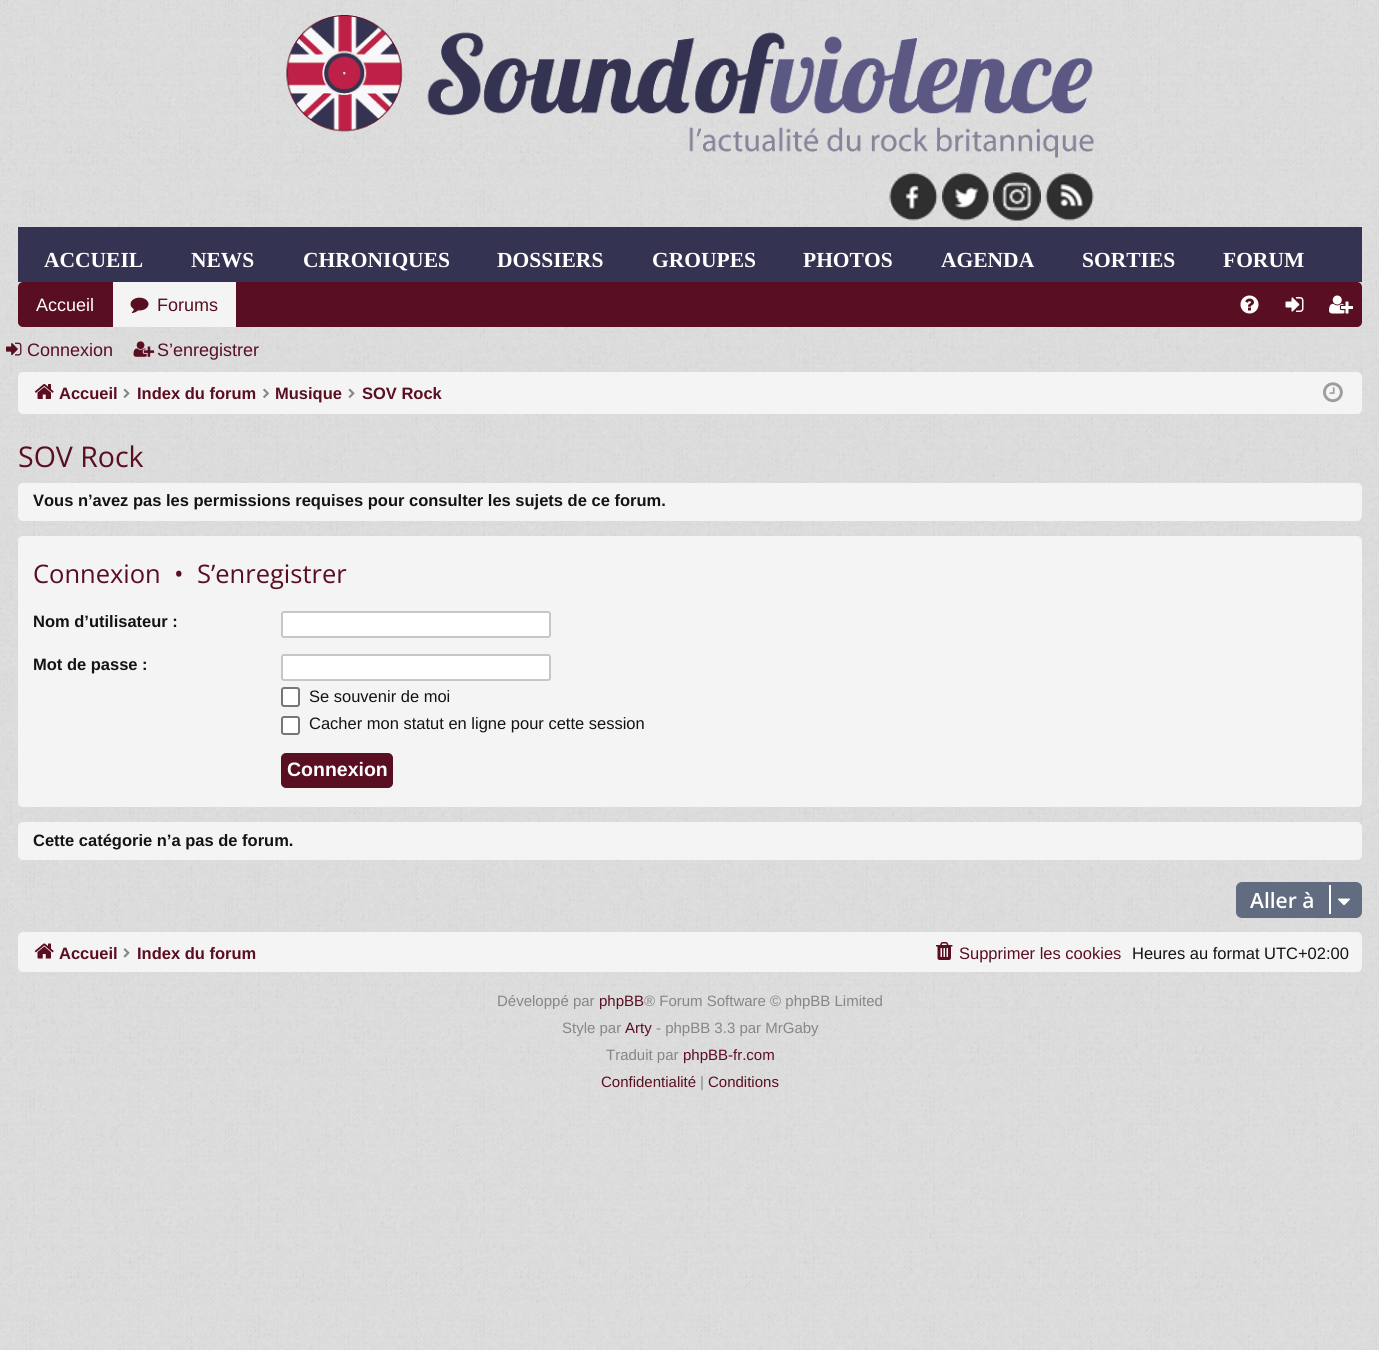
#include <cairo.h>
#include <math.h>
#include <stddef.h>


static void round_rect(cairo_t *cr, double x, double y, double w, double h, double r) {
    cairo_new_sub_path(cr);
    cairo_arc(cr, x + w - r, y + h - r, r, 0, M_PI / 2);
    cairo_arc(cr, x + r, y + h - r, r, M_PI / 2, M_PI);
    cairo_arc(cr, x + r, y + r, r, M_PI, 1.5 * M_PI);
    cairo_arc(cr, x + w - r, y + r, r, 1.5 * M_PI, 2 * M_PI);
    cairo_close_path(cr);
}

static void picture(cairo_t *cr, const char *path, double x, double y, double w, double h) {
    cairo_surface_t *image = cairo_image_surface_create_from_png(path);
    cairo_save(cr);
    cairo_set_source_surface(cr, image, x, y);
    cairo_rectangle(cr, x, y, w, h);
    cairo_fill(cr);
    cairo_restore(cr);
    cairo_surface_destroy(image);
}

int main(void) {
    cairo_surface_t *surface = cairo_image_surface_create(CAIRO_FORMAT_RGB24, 1379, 1350);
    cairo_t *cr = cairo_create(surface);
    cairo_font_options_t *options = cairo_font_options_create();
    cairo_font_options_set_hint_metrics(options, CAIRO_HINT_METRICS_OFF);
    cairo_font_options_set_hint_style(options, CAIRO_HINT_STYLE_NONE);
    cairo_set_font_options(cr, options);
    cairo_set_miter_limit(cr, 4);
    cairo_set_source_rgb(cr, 0.878, 0.878, 0.878);
    cairo_paint(cr);
    picture(cr, "img1.png", 0, 0, 1379, 1350);
    picture(cr, "img2.png", 286, 15, 808, 143);
    picture(cr, "img3.png", 889, 172, 49, 49);
    picture(cr, "img4.png", 942, 172, 47, 49);
    picture(cr, "img5.png", 993, 172, 48, 49);
    picture(cr, "img6.png", 1045, 172, 49, 49);
    cairo_set_source_rgb(cr, 0.208, 0.2, 0.322);
    cairo_rectangle(cr, 18, 227, 1344, 55);
    cairo_fill(cr);
    cairo_select_font_face(cr, "Liberation Serif", CAIRO_FONT_SLANT_NORMAL, CAIRO_FONT_WEIGHT_BOLD);
    cairo_set_font_size(cr, 21.5);
    cairo_set_source_rgb(cr, 1, 1, 1);
    cairo_move_to(cr, 44, 267);
    cairo_show_text(cr, "ACCUEIL");
    cairo_move_to(cr, 191, 267);
    cairo_show_text(cr, "NEWS");
    cairo_move_to(cr, 303, 267);
    cairo_show_text(cr, "CHRONIQUES");
    cairo_move_to(cr, 497, 267);
    cairo_show_text(cr, "DOSSIERS");
    cairo_move_to(cr, 652, 267);
    cairo_show_text(cr, "GROUPES");
    cairo_move_to(cr, 803, 267);
    cairo_show_text(cr, "PHOTOS");
    cairo_move_to(cr, 941, 267);
    cairo_show_text(cr, "AGENDA");
    cairo_move_to(cr, 1082, 267);
    cairo_show_text(cr, "SORTIES");
    cairo_move_to(cr, 1223, 267);
    cairo_show_text(cr, "FORUM");
    cairo_set_source_rgb(cr, 0.353, 0.055, 0.129);
    round_rect(cr, 18, 282, 1344, 45, 5);
    cairo_fill(cr);
    cairo_select_font_face(cr, "Liberation Sans", CAIRO_FONT_SLANT_NORMAL, CAIRO_FONT_WEIGHT_NORMAL);
    cairo_set_font_size(cr, 18);
    cairo_set_source_rgb(cr, 1, 1, 1);
    cairo_move_to(cr, 36, 311);
    cairo_show_text(cr, "Accueil");
    cairo_set_source_rgb(cr, 0.957, 0.957, 0.957);
    cairo_rectangle(cr, 113, 282, 123, 45);
    cairo_fill(cr);
    picture(cr, "img7.png", 130, 297, 19, 16);
    cairo_set_source_rgb(cr, 0.353, 0.055, 0.129);
    cairo_move_to(cr, 157, 311);
    cairo_show_text(cr, "Forums");
    picture(cr, "img8.png", 1240, 295, 19, 19);
    picture(cr, "img9.png", 1285, 297, 19, 15);
    picture(cr, "img10.png", 1329, 295, 24, 19);
    picture(cr, "img11.png", 6, 342, 16, 14);
    cairo_move_to(cr, 27, 356);
    cairo_show_text(cr, "Connexion");
    picture(cr, "img12.png", 133, 341, 22, 16);
    cairo_move_to(cr, 157, 356);
    cairo_show_text(cr, "S’enregistrer");
    cairo_set_source_rgb(cr, 0.957, 0.957, 0.957);
    round_rect(cr, 18, 372, 1344, 42, 5);
    cairo_fill(cr);
    picture(cr, "img13.png", 34, 384, 20, 15);
    cairo_select_font_face(cr, "Liberation Sans", CAIRO_FONT_SLANT_NORMAL, CAIRO_FONT_WEIGHT_BOLD);
    cairo_set_font_size(cr, 16.5);
    cairo_set_source_rgb(cr, 0.353, 0.055, 0.129);
    cairo_move_to(cr, 59, 399);
    cairo_show_text(cr, "Accueil");
    picture(cr, "img14.png", 123, 388, 7, 10);
    cairo_move_to(cr, 137, 399);
    cairo_show_text(cr, "Index du forum");
    picture(cr, "img15.png", 263, 388, 6, 10);
    cairo_move_to(cr, 275, 399);
    cairo_show_text(cr, "Musique");
    picture(cr, "img14.png", 348, 388, 7, 10);
    cairo_move_to(cr, 362, 399);
    cairo_show_text(cr, "SOV Rock");
    picture(cr, "img16.png", 1323, 382, 20, 21);
    cairo_select_font_face(cr, "Open Sans", CAIRO_FONT_SLANT_NORMAL, CAIRO_FONT_WEIGHT_NORMAL);
    cairo_set_font_size(cr, 28.5);
    cairo_move_to(cr, 18, 467);
    cairo_show_text(cr, "SOV Rock");
    cairo_set_source_rgb(cr, 0.957, 0.957, 0.957);
    round_rect(cr, 18, 483, 1344, 38, 5);
    cairo_fill(cr);
    cairo_select_font_face(cr, "Liberation Sans", CAIRO_FONT_SLANT_NORMAL, CAIRO_FONT_WEIGHT_BOLD);
    cairo_set_font_size(cr, 16.5);
    cairo_set_source_rgb(cr, 0.078, 0.078, 0.078);
    cairo_move_to(cr, 33, 506);
    cairo_show_text(cr, "Vous n’avez pas les permissions requises pour consulter les sujets de ce forum.");
    cairo_set_source_rgb(cr, 0.957, 0.957, 0.957);
    round_rect(cr, 18, 536, 1344, 271, 5);
    cairo_fill(cr);
    cairo_select_font_face(cr, "Open Sans", CAIRO_FONT_SLANT_NORMAL, CAIRO_FONT_WEIGHT_NORMAL);
    cairo_set_font_size(cr, 25.5);
    cairo_set_source_rgb(cr, 0.353, 0.055, 0.129);
    cairo_move_to(cr, 33, 583);
    cairo_show_text(cr, "Connexion");
    cairo_move_to(cr, 174, 583);
    cairo_show_text(cr, "•");
    cairo_move_to(cr, 197, 583);
    cairo_show_text(cr, "S’enregistrer");
    cairo_select_font_face(cr, "Liberation Sans", CAIRO_FONT_SLANT_NORMAL, CAIRO_FONT_WEIGHT_BOLD);
    cairo_set_font_size(cr, 16.5);
    cairo_set_source_rgb(cr, 0.078, 0.078, 0.078);
    cairo_move_to(cr, 33, 627);
    cairo_show_text(cr, "Nom d’utilisateur :");
    cairo_set_source_rgb(cr, 1, 1, 1);
    round_rect(cr, 282, 612, 268, 25, 2);
    cairo_fill_preserve(cr);
    cairo_set_source_rgb(cr, 0.776, 0.776, 0.776);
    cairo_stroke(cr);
    cairo_set_source_rgb(cr, 0.078, 0.078, 0.078);
    cairo_move_to(cr, 33, 670);
    cairo_show_text(cr, "Mot de passe :");
    cairo_set_source_rgb(cr, 1, 1, 1);
    round_rect(cr, 282, 655, 268, 25, 2);
    cairo_fill_preserve(cr);
    cairo_set_source_rgb(cr, 0.776, 0.776, 0.776);
    cairo_stroke(cr);
    cairo_set_source_rgb(cr, 1, 1, 1);
    round_rect(cr, 282, 688, 17, 18, 2);
    cairo_fill_preserve(cr);
    cairo_set_source_rgb(cr, 0.463, 0.463, 0.463);
    cairo_stroke(cr);
    cairo_select_font_face(cr, "Liberation Sans", CAIRO_FONT_SLANT_NORMAL, CAIRO_FONT_WEIGHT_NORMAL);
    cairo_set_source_rgb(cr, 0.078, 0.078, 0.078);
    cairo_move_to(cr, 309, 702);
    cairo_show_text(cr, "Se souvenir de moi");
    cairo_set_source_rgb(cr, 1, 1, 1);
    round_rect(cr, 282, 717, 17, 17, 2);
    cairo_fill_preserve(cr);
    cairo_set_source_rgb(cr, 0.463, 0.463, 0.463);
    cairo_stroke(cr);
    cairo_set_source_rgb(cr, 0.078, 0.078, 0.078);
    cairo_move_to(cr, 309, 729);
    cairo_show_text(cr, "Cacher mon statut en ligne pour cette session");
    cairo_set_source_rgb(cr, 0.353, 0.055, 0.129);
    round_rect(cr, 282, 754, 110, 33, 4);
    cairo_fill_preserve(cr);
    cairo_stroke(cr);
    cairo_select_font_face(cr, "Liberation Sans", CAIRO_FONT_SLANT_NORMAL, CAIRO_FONT_WEIGHT_BOLD);
    cairo_set_font_size(cr, 19.5);
    cairo_set_source_rgb(cr, 1, 1, 1);
    cairo_move_to(cr, 287, 776);
    cairo_show_text(cr, "Connexion");
    cairo_set_source_rgb(cr, 0.957, 0.957, 0.957);
    round_rect(cr, 18, 822, 1344, 38, 5);
    cairo_fill(cr);
    cairo_set_font_size(cr, 16.5);
    cairo_set_source_rgb(cr, 0.078, 0.078, 0.078);
    cairo_move_to(cr, 33, 846);
    cairo_show_text(cr, "Cette catégorie n’a pas de forum.");
    cairo_set_source_rgb(cr, 0.384, 0.424, 0.502);
    round_rect(cr, 1237, 883, 124, 34, 5);
    cairo_fill_preserve(cr);
    cairo_stroke(cr);
    cairo_select_font_face(cr, "Open Sans SemiBold", CAIRO_FONT_SLANT_NORMAL, CAIRO_FONT_WEIGHT_NORMAL);
    cairo_set_font_size(cr, 21);
    cairo_set_source_rgb(cr, 1, 1, 1);
    cairo_move_to(cr, 1250, 908);
    cairo_show_text(cr, "Aller à");
    cairo_rectangle(cr, 1329, 885, 2, 29);
    cairo_fill(cr);
    picture(cr, "img17.png", 1338, 898, 12, 8);
    cairo_set_source_rgb(cr, 0.957, 0.957, 0.957);
    round_rect(cr, 18, 932, 1344, 40, 5);
    cairo_fill(cr);
    picture(cr, "img18.png", 34, 943, 20, 16);
    cairo_select_font_face(cr, "Liberation Sans", CAIRO_FONT_SLANT_NORMAL, CAIRO_FONT_WEIGHT_BOLD);
    cairo_set_font_size(cr, 16.5);
    cairo_set_source_rgb(cr, 0.353, 0.055, 0.129);
    cairo_move_to(cr, 59, 959);
    cairo_show_text(cr, "Accueil");
    picture(cr, "img19.png", 123, 948, 7, 10);
    cairo_move_to(cr, 137, 959);
    cairo_show_text(cr, "Index du forum");
    picture(cr, "img20.png", 936, 942, 17, 18);
    cairo_select_font_face(cr, "Liberation Sans", CAIRO_FONT_SLANT_NORMAL, CAIRO_FONT_WEIGHT_NORMAL);
    cairo_move_to(cr, 959, 959);
    cairo_show_text(cr, "Supprimer les cookies");
    cairo_set_source_rgb(cr, 0.078, 0.078, 0.078);
    cairo_move_to(cr, 1132, 959);
    cairo_show_text(cr, "Heures au format UTC+02:00");
    cairo_set_font_size(cr, 15);
    cairo_set_source_rgb(cr, 0.525, 0.525, 0.525);
    cairo_move_to(cr, 497, 1006);
    cairo_show_text(cr, "Développé par");
    cairo_set_source_rgb(cr, 0.353, 0.055, 0.129);
    cairo_move_to(cr, 599, 1006);
    cairo_show_text(cr, "phpBB");
    cairo_set_source_rgb(cr, 0.525, 0.525, 0.525);
    cairo_move_to(cr, 644, 1006);
    cairo_show_text(cr, "® Forum Software © phpBB Limited");
    cairo_move_to(cr, 562, 1033);
    cairo_show_text(cr, "Style par");
    cairo_set_source_rgb(cr, 0.353, 0.055, 0.129);
    cairo_move_to(cr, 625, 1033);
    cairo_show_text(cr, "Arty");
    cairo_set_source_rgb(cr, 0.525, 0.525, 0.525);
    cairo_move_to(cr, 656, 1033);
    cairo_show_text(cr, "- phpBB 3.3 par MrGaby");
    cairo_move_to(cr, 606, 1060);
    cairo_show_text(cr, "Traduit par");
    cairo_set_source_rgb(cr, 0.353, 0.055, 0.129);
    cairo_move_to(cr, 683, 1060);
    cairo_show_text(cr, "phpBB-fr.com");
    cairo_move_to(cr, 601, 1087);
    cairo_show_text(cr, "Confidentialité");
    cairo_set_source_rgb(cr, 0.525, 0.525, 0.525);
    cairo_move_to(cr, 700, 1087);
    cairo_show_text(cr, "|");
    cairo_set_source_rgb(cr, 0.353, 0.055, 0.129);
    cairo_move_to(cr, 708, 1087);
    cairo_show_text(cr, "Conditions");
    cairo_surface_write_to_png(surface, "page.png");
    cairo_font_options_destroy(options);
    cairo_destroy(cr);
    cairo_surface_destroy(surface);
    return 0;
}
